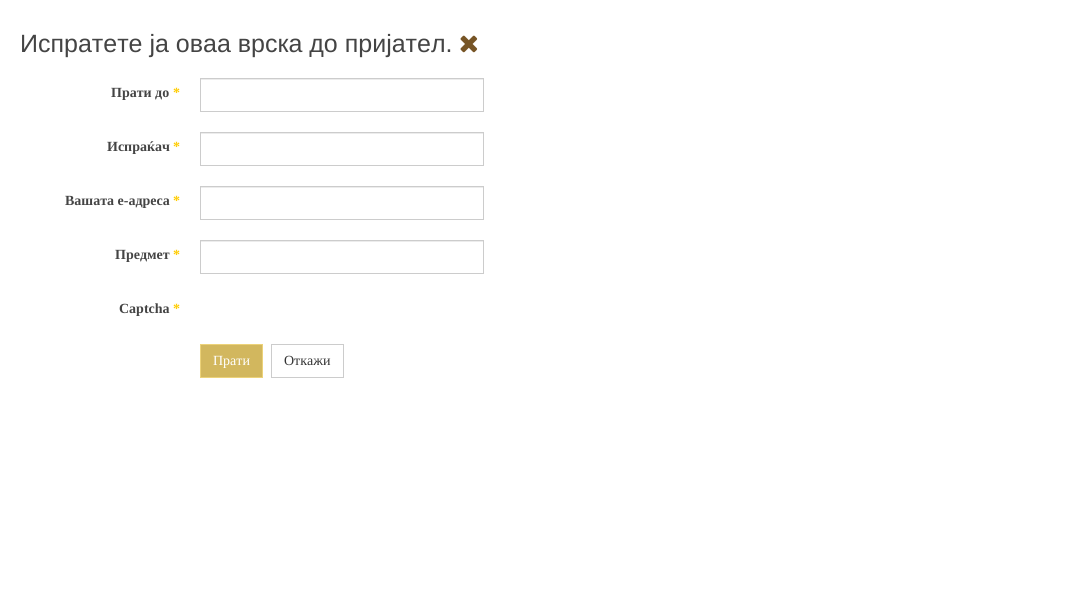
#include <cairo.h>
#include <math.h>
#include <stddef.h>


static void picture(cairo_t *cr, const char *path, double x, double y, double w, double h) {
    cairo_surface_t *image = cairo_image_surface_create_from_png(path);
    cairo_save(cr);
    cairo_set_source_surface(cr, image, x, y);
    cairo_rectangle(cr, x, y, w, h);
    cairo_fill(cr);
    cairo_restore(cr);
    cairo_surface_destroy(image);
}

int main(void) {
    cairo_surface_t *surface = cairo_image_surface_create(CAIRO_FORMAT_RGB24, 1083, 590);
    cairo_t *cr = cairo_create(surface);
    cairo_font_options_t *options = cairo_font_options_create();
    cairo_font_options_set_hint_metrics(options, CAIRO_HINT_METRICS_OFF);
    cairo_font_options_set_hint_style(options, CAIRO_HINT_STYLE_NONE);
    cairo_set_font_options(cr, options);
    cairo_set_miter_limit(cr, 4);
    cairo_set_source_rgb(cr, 1, 1, 1);
    cairo_paint(cr);
    cairo_select_font_face(cr, "Liberation Sans", CAIRO_FONT_SLANT_NORMAL, CAIRO_FONT_WEIGHT_NORMAL);
    cairo_set_font_size(cr, 25);
    cairo_set_source_rgb(cr, 0.267, 0.267, 0.267);
    cairo_move_to(cr, 20, 52);
    cairo_show_text(cr, "Испратете ја оваа врска до пријател.");
    picture(cr, "img1.png", 460, 35, 18, 18);
    cairo_select_font_face(cr, "Liberation Serif", CAIRO_FONT_SLANT_NORMAL, CAIRO_FONT_WEIGHT_BOLD);
    cairo_set_font_size(cr, 14);
    cairo_move_to(cr, 111, 97);
    cairo_show_text(cr, "Прати до");
    cairo_set_source_rgb(cr, 1, 0.8, 0);
    cairo_move_to(cr, 173, 97);
    cairo_show_text(cr, "*");
    cairo_set_source_rgb(cr, 0.925, 0.925, 0.925);
    cairo_rectangle(cr, 201, 79, 282, 1);
    cairo_fill(cr);
    cairo_rectangle(cr, 200.5, 78.5, 283, 33);
    cairo_set_source_rgb(cr, 0.8, 0.8, 0.8);
    cairo_set_line_width(cr, 1);
    cairo_stroke(cr);
    cairo_set_source_rgb(cr, 0.267, 0.267, 0.267);
    cairo_move_to(cr, 107, 151);
    cairo_show_text(cr, "Испраќач");
    cairo_set_source_rgb(cr, 1, 0.8, 0);
    cairo_move_to(cr, 173, 151);
    cairo_show_text(cr, "*");
    cairo_set_source_rgb(cr, 0.925, 0.925, 0.925);
    cairo_rectangle(cr, 201, 133, 282, 1);
    cairo_fill(cr);
    cairo_rectangle(cr, 200.5, 132.5, 283, 33);
    cairo_set_source_rgb(cr, 0.8, 0.8, 0.8);
    cairo_stroke(cr);
    cairo_set_source_rgb(cr, 0.267, 0.267, 0.267);
    cairo_move_to(cr, 65, 205);
    cairo_show_text(cr, "Вашата е-адреса");
    cairo_set_source_rgb(cr, 1, 0.8, 0);
    cairo_move_to(cr, 173, 205);
    cairo_show_text(cr, "*");
    cairo_set_source_rgb(cr, 0.925, 0.925, 0.925);
    cairo_rectangle(cr, 201, 187, 282, 1);
    cairo_fill(cr);
    cairo_rectangle(cr, 200.5, 186.5, 283, 33);
    cairo_set_source_rgb(cr, 0.8, 0.8, 0.8);
    cairo_stroke(cr);
    cairo_set_source_rgb(cr, 0.267, 0.267, 0.267);
    cairo_move_to(cr, 115, 259);
    cairo_show_text(cr, "Предмет");
    cairo_set_source_rgb(cr, 1, 0.8, 0);
    cairo_move_to(cr, 173, 259);
    cairo_show_text(cr, "*");
    cairo_set_source_rgb(cr, 0.925, 0.925, 0.925);
    cairo_rectangle(cr, 201, 241, 282, 1);
    cairo_fill(cr);
    cairo_rectangle(cr, 200.5, 240.5, 283, 33);
    cairo_set_source_rgb(cr, 0.8, 0.8, 0.8);
    cairo_stroke(cr);
    cairo_set_source_rgb(cr, 0.267, 0.267, 0.267);
    cairo_move_to(cr, 119, 313);
    cairo_show_text(cr, "Captcha");
    cairo_set_source_rgb(cr, 1, 0.8, 0);
    cairo_move_to(cr, 173, 313);
    cairo_show_text(cr, "*");
    cairo_set_source_rgb(cr, 0.824, 0.718, 0.369);
    cairo_rectangle(cr, 200.5, 344.5, 62, 33);
    cairo_fill_preserve(cr);
    cairo_set_source_rgb(cr, 0.922, 0.824, 0.475);
    cairo_stroke(cr);
    cairo_select_font_face(cr, "Liberation Serif", CAIRO_FONT_SLANT_NORMAL, CAIRO_FONT_WEIGHT_NORMAL);
    cairo_set_source_rgb(cr, 1, 1, 1);
    cairo_move_to(cr, 213, 365);
    cairo_show_text(cr, "Прати");
    cairo_rectangle(cr, 271.5, 344.5, 72, 33);
    cairo_set_source_rgb(cr, 0.8, 0.8, 0.8);
    cairo_stroke(cr);
    cairo_set_source_rgb(cr, 0.2, 0.2, 0.2);
    cairo_move_to(cr, 284, 365);
    cairo_show_text(cr, "Откажи");
    cairo_surface_write_to_png(surface, "page.png");
    cairo_font_options_destroy(options);
    cairo_destroy(cr);
    cairo_surface_destroy(surface);
    return 0;
}
